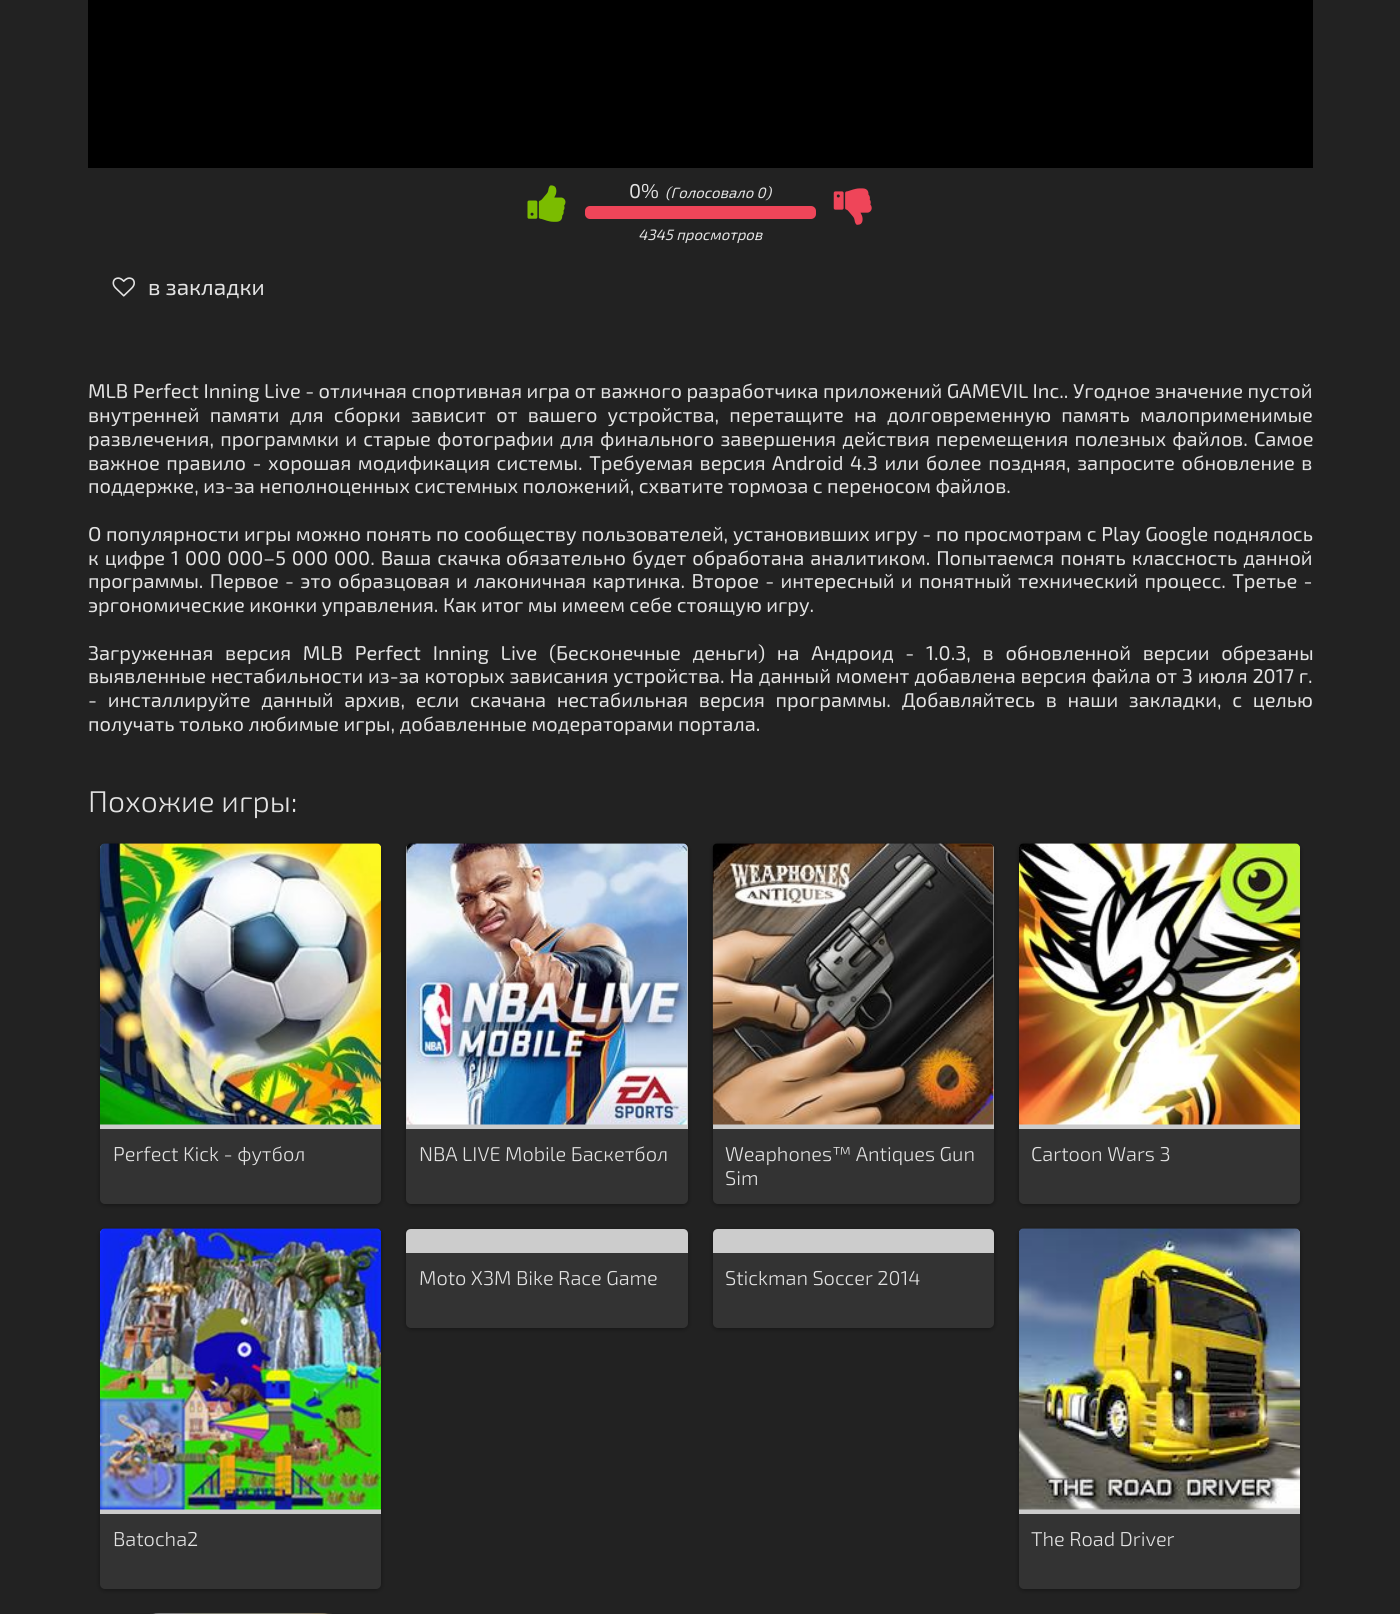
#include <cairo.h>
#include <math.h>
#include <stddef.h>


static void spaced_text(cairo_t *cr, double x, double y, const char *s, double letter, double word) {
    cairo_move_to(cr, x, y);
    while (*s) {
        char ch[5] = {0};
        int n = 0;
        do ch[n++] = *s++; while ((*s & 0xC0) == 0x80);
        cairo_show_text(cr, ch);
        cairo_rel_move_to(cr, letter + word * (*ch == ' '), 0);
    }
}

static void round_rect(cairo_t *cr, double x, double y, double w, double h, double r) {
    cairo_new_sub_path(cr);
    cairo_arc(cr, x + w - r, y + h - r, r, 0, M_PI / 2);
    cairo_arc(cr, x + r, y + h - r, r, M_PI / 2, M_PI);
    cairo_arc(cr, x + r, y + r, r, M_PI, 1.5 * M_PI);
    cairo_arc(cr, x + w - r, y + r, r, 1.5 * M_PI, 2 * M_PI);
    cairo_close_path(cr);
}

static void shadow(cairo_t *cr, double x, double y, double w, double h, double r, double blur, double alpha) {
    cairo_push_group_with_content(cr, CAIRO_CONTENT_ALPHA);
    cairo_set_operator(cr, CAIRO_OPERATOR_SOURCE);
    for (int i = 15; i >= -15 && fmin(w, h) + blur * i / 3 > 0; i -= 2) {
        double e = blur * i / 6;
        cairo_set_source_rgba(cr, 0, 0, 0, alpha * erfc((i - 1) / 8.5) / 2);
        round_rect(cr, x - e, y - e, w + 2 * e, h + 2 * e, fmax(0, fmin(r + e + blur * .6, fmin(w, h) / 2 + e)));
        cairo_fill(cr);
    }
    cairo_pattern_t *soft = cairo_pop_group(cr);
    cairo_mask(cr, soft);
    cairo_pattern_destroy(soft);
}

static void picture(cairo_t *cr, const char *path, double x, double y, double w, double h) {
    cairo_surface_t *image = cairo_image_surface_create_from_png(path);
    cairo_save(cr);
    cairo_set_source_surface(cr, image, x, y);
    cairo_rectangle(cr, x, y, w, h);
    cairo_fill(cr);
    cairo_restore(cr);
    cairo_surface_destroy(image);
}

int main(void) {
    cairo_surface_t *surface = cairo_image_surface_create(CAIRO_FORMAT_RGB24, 1400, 1614);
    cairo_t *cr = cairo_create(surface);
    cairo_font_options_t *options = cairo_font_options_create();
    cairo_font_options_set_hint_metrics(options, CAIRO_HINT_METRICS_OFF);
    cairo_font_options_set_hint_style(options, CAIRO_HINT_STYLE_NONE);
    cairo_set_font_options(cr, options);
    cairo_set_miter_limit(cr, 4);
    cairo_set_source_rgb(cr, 0.133, 0.133, 0.133);
    cairo_paint(cr);
    cairo_set_source_rgb(cr, 0, 0, 0);
    cairo_rectangle(cr, 88, 0, 1225, 168);
    cairo_fill(cr);
    picture(cr, "img1.png", 527, 185, 39, 37);
    cairo_select_font_face(cr, "Exo 2", CAIRO_FONT_SLANT_NORMAL, CAIRO_FONT_WEIGHT_NORMAL);
    cairo_set_font_size(cr, 20);
    cairo_set_source_rgb(cr, 0.89, 0.89, 0.89);
    cairo_move_to(cr, 629, 198);
    cairo_show_text(cr, "0%");
    cairo_select_font_face(cr, "Exo 2", CAIRO_FONT_SLANT_ITALIC, CAIRO_FONT_WEIGHT_NORMAL);
    cairo_set_font_size(cr, 15);
    cairo_move_to(cr, 665, 198);
    cairo_show_text(cr, "(Голосовало 0)");
    cairo_set_source_rgb(cr, 0.937, 0.271, 0.349);
    round_rect(cr, 585, 206, 231, 13, 5);
    cairo_fill(cr);
    cairo_set_source_rgb(cr, 0.89, 0.89, 0.89);
    cairo_move_to(cr, 638, 240);
    cairo_show_text(cr, "4345 просмотров");
    picture(cr, "img2.png", 833, 188, 39, 37);
    picture(cr, "img3.png", 112, 277, 23, 20);
    cairo_select_font_face(cr, "Exo 2", CAIRO_FONT_SLANT_NORMAL, CAIRO_FONT_WEIGHT_NORMAL);
    cairo_set_font_size(cr, 22.5);
    cairo_move_to(cr, 148, 295);
    cairo_show_text(cr, "в закладки");
    cairo_set_font_size(cr, 20);
    cairo_move_to(cr, 88, 398);
    cairo_show_text(cr, "MLB Perfect Inning Live - отличная спортивная игра от важного разработчика приложений GAMEVIL Inc.. Угодное значение пустой");
    spaced_text(cr, 88, 422, "внутренней памяти для сборки зависит от вашего устройства, перетащите на долговременную память малоприменимые", 0, 5.75);
    spaced_text(cr, 88, 446, "развлечения, программки и старые фотографии для финального завершения действия перемещения полезных файлов. Самое", 0, 1.75);
    spaced_text(cr, 88, 470, "важное правило - хорошая модификация системы. Требуемая версия Android 4.3 или более поздняя, запросите обновление в", 0, 2.1);
    cairo_move_to(cr, 88, 493);
    cairo_show_text(cr, "поддержке, из-за неполноценных системных положений, схватите тормоза с переносом файлов.");
    spaced_text(cr, 88, 541, "О популярности игры можно понять по сообществу пользователей, установивших игру - по просмотрам с Play Google поднялось", 0, 0.25);
    spaced_text(cr, 88, 565, "к цифре 1 000 000–5 000 000. Ваша скачка", 0, 1.5);
    spaced_text(cr, 506, 565, "обязательно будет обработана аналитиком. Попытаемся понять классность данной", 0, 1.5);
    spaced_text(cr, 88, 588, "программы. Первое - это образцовая и лаконичная картинка. Второе - интересный и понятный технический процесс. Третье -", 0, 1.8);
    cairo_move_to(cr, 88, 612);
    cairo_show_text(cr, "эргономические иконки управления. Как итог мы имеем себе стоящую игру.");
    spaced_text(cr, 88, 660, "Загруженная версия MLB Perfect Inning Live (Бесконечные деньги) на Андроид - 1.0.3, в обновленной версии обрезаны", 0, 7.25);
    spaced_text(cr, 88, 683, "выявленные нестабильности из-за которых зависания устройства. На данный момент добавлена версия файла от 3 июля 2017 г.", 0, 0.4);
    spaced_text(cr, 88, 707, "- инсталлируйте данный архив, если скачана нестабильная версия программы. Добавляйтесь в наши закладки, с целью", 0, 6.25);
    cairo_move_to(cr, 88, 731);
    cairo_show_text(cr, "получать только любимые игры, добавленные модераторами портала.");
    cairo_select_font_face(cr, "Exo 2 Light", CAIRO_FONT_SLANT_NORMAL, CAIRO_FONT_WEIGHT_NORMAL);
    cairo_set_font_size(cr, 30);
    cairo_move_to(cr, 88, 812);
    cairo_show_text(cr, "Похожие игры:");
    cairo_set_source_rgb(cr, 0, 0, 0);
    shadow(cr, 100, 845, 281, 360, 5, 2.5, 0.4);
    cairo_set_source_rgb(cr, 0.2, 0.2, 0.2);
    round_rect(cr, 100, 844, 281, 360, 5);
    cairo_fill(cr);
    cairo_set_source_rgb(cr, 0.8, 0.8, 0.8);
    cairo_new_path(cr);
    cairo_move_to(cr, 105, 844);
    cairo_line_to(cr, 376, 844);
    cairo_curve_to(cr, 379, 844, 381, 846, 381, 849);
    cairo_line_to(cr, 381, 1129);
    cairo_line_to(cr, 100, 1129);
    cairo_line_to(cr, 100, 849);
    cairo_curve_to(cr, 100, 846, 102, 844, 105, 844);
    cairo_close_path(cr);
    cairo_fill(cr);
    picture(cr, "img4.png", 100, 843, 281, 282);
    cairo_set_font_size(cr, 20);
    cairo_set_source_rgb(cr, 0.89, 0.89, 0.89);
    cairo_move_to(cr, 113, 1161);
    cairo_show_text(cr, "Perfect Kick - футбол");
    cairo_set_source_rgb(cr, 0, 0, 0);
    shadow(cr, 406, 845, 282, 360, 5, 2.5, 0.4);
    cairo_set_source_rgb(cr, 0.2, 0.2, 0.2);
    round_rect(cr, 406, 844, 282, 360, 5);
    cairo_fill(cr);
    cairo_set_source_rgb(cr, 0.8, 0.8, 0.8);
    cairo_new_path(cr);
    cairo_move_to(cr, 411, 844);
    cairo_line_to(cr, 683, 844);
    cairo_curve_to(cr, 686, 844, 688, 846, 688, 849);
    cairo_line_to(cr, 688, 1129);
    cairo_line_to(cr, 406, 1129);
    cairo_line_to(cr, 406, 849);
    cairo_curve_to(cr, 406, 846, 408, 844, 411, 844);
    cairo_close_path(cr);
    cairo_fill(cr);
    picture(cr, "img5.png", 406, 843, 282, 282);
    cairo_set_source_rgb(cr, 0.89, 0.89, 0.89);
    cairo_move_to(cr, 419, 1161);
    cairo_show_text(cr, "NBA LIVE Mobile Баскетбол");
    cairo_set_source_rgb(cr, 0, 0, 0);
    shadow(cr, 713, 845, 281, 360, 5, 2.5, 0.4);
    cairo_set_source_rgb(cr, 0.2, 0.2, 0.2);
    round_rect(cr, 713, 844, 281, 360, 5);
    cairo_fill(cr);
    cairo_set_source_rgb(cr, 0.8, 0.8, 0.8);
    cairo_new_path(cr);
    cairo_move_to(cr, 718, 844);
    cairo_line_to(cr, 989, 844);
    cairo_curve_to(cr, 992, 844, 994, 846, 994, 849);
    cairo_line_to(cr, 994, 1129);
    cairo_line_to(cr, 713, 1129);
    cairo_line_to(cr, 713, 849);
    cairo_curve_to(cr, 713, 846, 715, 844, 718, 844);
    cairo_close_path(cr);
    cairo_fill(cr);
    picture(cr, "img6.png", 712, 843, 282, 282);
    cairo_set_source_rgb(cr, 0.89, 0.89, 0.89);
    cairo_move_to(cr, 725, 1161);
    cairo_show_text(cr, "Weaphones™ Antiques Gun");
    cairo_move_to(cr, 725, 1185);
    cairo_show_text(cr, "Sim");
    cairo_set_source_rgb(cr, 0, 0, 0);
    shadow(cr, 1019, 845, 281, 360, 5, 2.5, 0.4);
    cairo_set_source_rgb(cr, 0.2, 0.2, 0.2);
    round_rect(cr, 1019, 844, 281, 360, 5);
    cairo_fill(cr);
    cairo_set_source_rgb(cr, 0.8, 0.8, 0.8);
    cairo_new_path(cr);
    cairo_move_to(cr, 1024, 844);
    cairo_line_to(cr, 1295, 844);
    cairo_curve_to(cr, 1298, 844, 1300, 846, 1300, 849);
    cairo_line_to(cr, 1300, 1129);
    cairo_line_to(cr, 1019, 1129);
    cairo_line_to(cr, 1019, 849);
    cairo_curve_to(cr, 1019, 846, 1021, 844, 1024, 844);
    cairo_close_path(cr);
    cairo_fill(cr);
    picture(cr, "img7.png", 1019, 843, 281, 282);
    cairo_set_source_rgb(cr, 0.89, 0.89, 0.89);
    cairo_move_to(cr, 1031, 1161);
    cairo_show_text(cr, "Cartoon Wars 3");
    cairo_set_source_rgb(cr, 0, 0, 0);
    shadow(cr, 406, 1230, 282, 99, 5, 2.5, 0.4);
    cairo_set_source_rgb(cr, 0.2, 0.2, 0.2);
    round_rect(cr, 406, 1229, 282, 99, 5);
    cairo_fill(cr);
    cairo_set_source_rgb(cr, 0.8, 0.8, 0.8);
    cairo_new_path(cr);
    cairo_move_to(cr, 411, 1229);
    cairo_line_to(cr, 683, 1229);
    cairo_curve_to(cr, 686, 1229, 688, 1231, 688, 1234);
    cairo_line_to(cr, 688, 1253);
    cairo_line_to(cr, 406, 1253);
    cairo_line_to(cr, 406, 1234);
    cairo_curve_to(cr, 406, 1231, 408, 1229, 411, 1229);
    cairo_close_path(cr);
    cairo_fill(cr);
    cairo_set_source_rgb(cr, 0.89, 0.89, 0.89);
    cairo_move_to(cr, 419, 1285);
    cairo_show_text(cr, "Moto X3M Bike Race Game");
    cairo_set_source_rgb(cr, 0, 0, 0);
    shadow(cr, 713, 1230, 281, 99, 5, 2.5, 0.4);
    cairo_set_source_rgb(cr, 0.2, 0.2, 0.2);
    round_rect(cr, 713, 1229, 281, 99, 5);
    cairo_fill(cr);
    cairo_set_source_rgb(cr, 0.8, 0.8, 0.8);
    cairo_new_path(cr);
    cairo_move_to(cr, 718, 1229);
    cairo_line_to(cr, 989, 1229);
    cairo_curve_to(cr, 992, 1229, 994, 1231, 994, 1234);
    cairo_line_to(cr, 994, 1253);
    cairo_line_to(cr, 713, 1253);
    cairo_line_to(cr, 713, 1234);
    cairo_curve_to(cr, 713, 1231, 715, 1229, 718, 1229);
    cairo_close_path(cr);
    cairo_fill(cr);
    cairo_set_source_rgb(cr, 0.89, 0.89, 0.89);
    cairo_move_to(cr, 725, 1285);
    cairo_show_text(cr, "Stickman Soccer 2014");
    cairo_set_source_rgb(cr, 0, 0, 0);
    shadow(cr, 100, 1230, 281, 360, 5, 2.5, 0.4);
    cairo_set_source_rgb(cr, 0.2, 0.2, 0.2);
    round_rect(cr, 100, 1229, 281, 360, 5);
    cairo_fill(cr);
    cairo_set_source_rgb(cr, 0.8, 0.8, 0.8);
    cairo_new_path(cr);
    cairo_move_to(cr, 105, 1229);
    cairo_line_to(cr, 376, 1229);
    cairo_curve_to(cr, 379, 1229, 381, 1231, 381, 1234);
    cairo_line_to(cr, 381, 1514);
    cairo_line_to(cr, 100, 1514);
    cairo_line_to(cr, 100, 1234);
    cairo_curve_to(cr, 100, 1231, 102, 1229, 105, 1229);
    cairo_close_path(cr);
    cairo_fill(cr);
    picture(cr, "img8.png", 100, 1228, 281, 282);
    cairo_set_source_rgb(cr, 0.89, 0.89, 0.89);
    cairo_move_to(cr, 113, 1546);
    cairo_show_text(cr, "Batocha2");
    cairo_set_source_rgb(cr, 0, 0, 0);
    shadow(cr, 1019, 1230, 281, 360, 5, 2.5, 0.4);
    cairo_set_source_rgb(cr, 0.2, 0.2, 0.2);
    round_rect(cr, 1019, 1229, 281, 360, 5);
    cairo_fill(cr);
    cairo_set_source_rgb(cr, 0.8, 0.8, 0.8);
    cairo_new_path(cr);
    cairo_move_to(cr, 1024, 1229);
    cairo_line_to(cr, 1295, 1229);
    cairo_curve_to(cr, 1298, 1229, 1300, 1231, 1300, 1234);
    cairo_line_to(cr, 1300, 1514);
    cairo_line_to(cr, 1019, 1514);
    cairo_line_to(cr, 1019, 1234);
    cairo_curve_to(cr, 1019, 1231, 1021, 1229, 1024, 1229);
    cairo_close_path(cr);
    cairo_fill(cr);
    picture(cr, "img9.png", 1019, 1228, 281, 282);
    cairo_set_source_rgb(cr, 0.89, 0.89, 0.89);
    cairo_move_to(cr, 1031, 1546);
    cairo_show_text(cr, "The Road Driver");
    picture(cr, "img10.png", 150, 1613, 182, 1);
    cairo_surface_write_to_png(surface, "page.png");
    cairo_font_options_destroy(options);
    cairo_destroy(cr);
    cairo_surface_destroy(surface);
    return 0;
}
